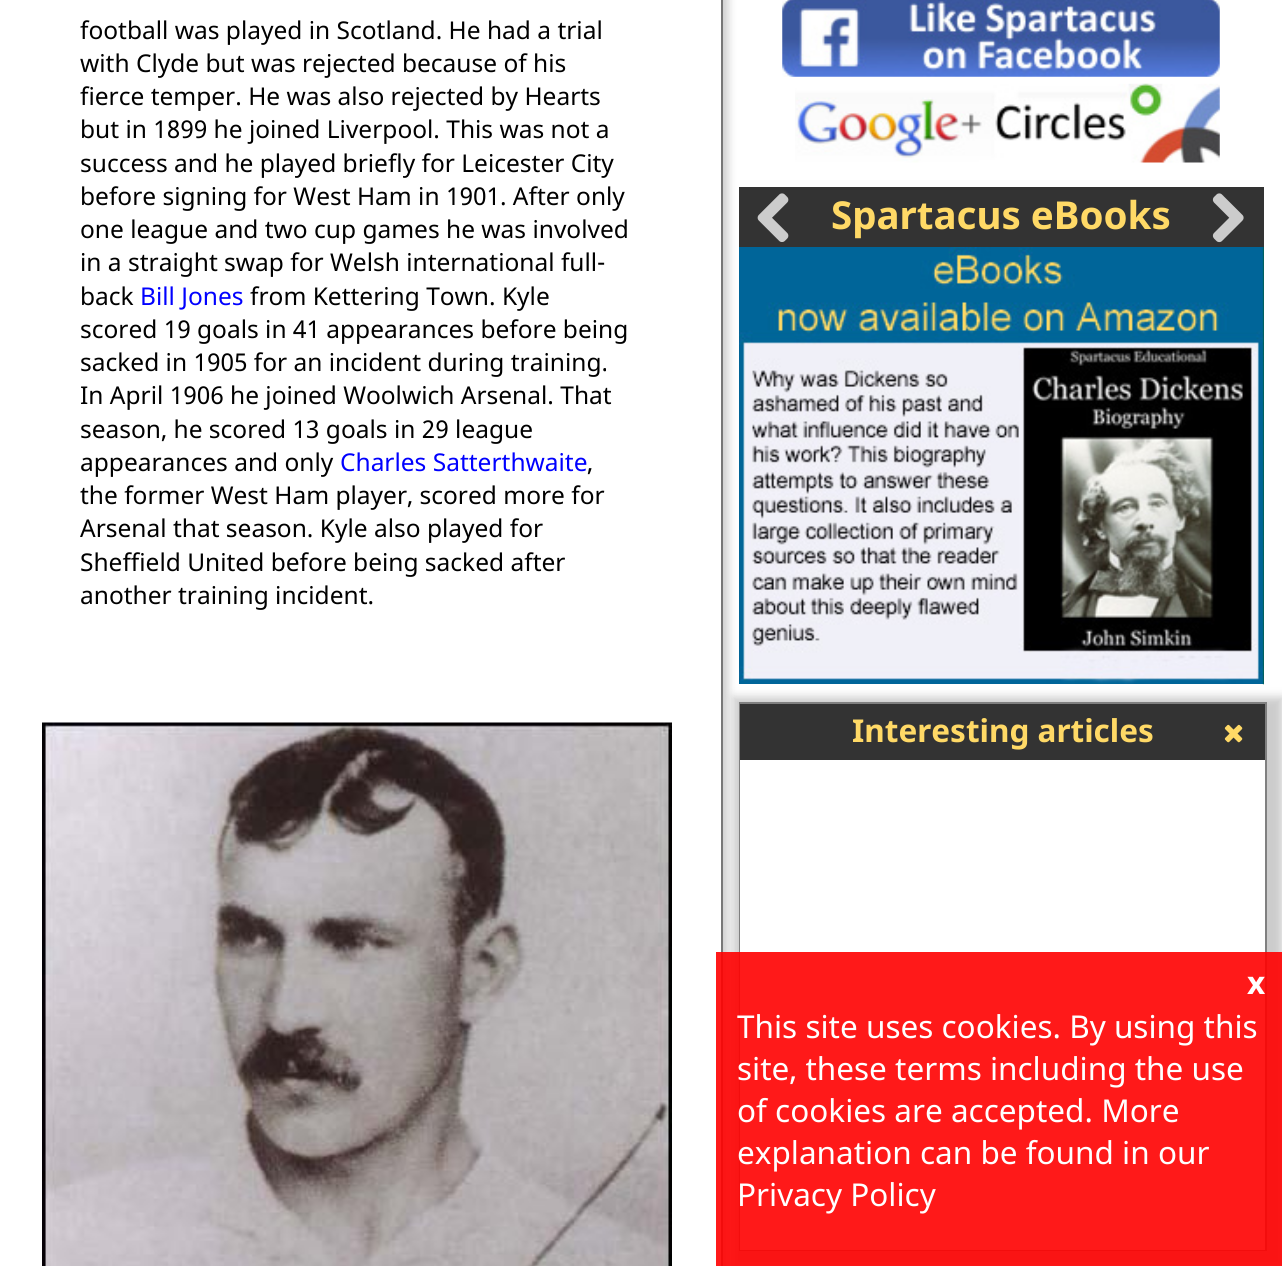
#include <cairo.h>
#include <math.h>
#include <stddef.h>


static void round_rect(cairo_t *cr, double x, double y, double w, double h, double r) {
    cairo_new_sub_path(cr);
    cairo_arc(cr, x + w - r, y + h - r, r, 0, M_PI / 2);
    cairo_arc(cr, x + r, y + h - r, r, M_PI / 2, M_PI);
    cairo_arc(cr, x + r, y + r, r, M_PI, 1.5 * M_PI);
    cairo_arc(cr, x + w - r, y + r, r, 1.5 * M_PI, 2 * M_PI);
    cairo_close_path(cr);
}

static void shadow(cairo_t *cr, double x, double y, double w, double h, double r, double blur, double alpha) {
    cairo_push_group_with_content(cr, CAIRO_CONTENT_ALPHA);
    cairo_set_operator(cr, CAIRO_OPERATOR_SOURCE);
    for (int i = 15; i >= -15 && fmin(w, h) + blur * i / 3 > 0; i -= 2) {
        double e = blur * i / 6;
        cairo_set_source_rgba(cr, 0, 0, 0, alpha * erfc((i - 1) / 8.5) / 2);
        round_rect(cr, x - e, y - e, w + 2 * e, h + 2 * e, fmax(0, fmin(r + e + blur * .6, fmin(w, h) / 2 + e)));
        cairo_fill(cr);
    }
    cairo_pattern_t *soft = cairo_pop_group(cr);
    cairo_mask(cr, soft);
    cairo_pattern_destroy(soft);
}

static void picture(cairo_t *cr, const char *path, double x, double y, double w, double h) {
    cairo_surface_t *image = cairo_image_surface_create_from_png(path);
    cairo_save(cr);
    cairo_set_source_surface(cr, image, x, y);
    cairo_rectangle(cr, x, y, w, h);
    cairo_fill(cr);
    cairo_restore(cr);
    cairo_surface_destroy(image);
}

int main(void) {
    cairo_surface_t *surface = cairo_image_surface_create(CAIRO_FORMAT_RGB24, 1282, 1266);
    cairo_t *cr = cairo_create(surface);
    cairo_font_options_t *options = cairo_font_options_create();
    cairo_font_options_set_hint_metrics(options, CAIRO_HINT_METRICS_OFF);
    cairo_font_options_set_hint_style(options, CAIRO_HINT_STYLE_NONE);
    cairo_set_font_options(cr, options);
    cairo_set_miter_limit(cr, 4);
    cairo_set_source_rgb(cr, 1, 1, 1);
    cairo_paint(cr);
    cairo_set_source_rgb(cr, 0.2, 0.2, 0.2);
    cairo_rectangle(cr, 739, 187, 525, 60);
    cairo_fill(cr);
    cairo_save(cr);
    cairo_rectangle(cr, 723, 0, 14, 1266);
    cairo_clip(cr);
    cairo_set_source_rgb(cr, 0.8, 0.8, 0.8);
    shadow(cr, 5, -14, 723, 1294, 0, 4.5, 1);
    cairo_restore(cr);
    cairo_set_source_rgb(cr, 0.467, 0.467, 0.467);
    cairo_rectangle(cr, 721, 0, 2, 1266);
    cairo_fill(cr);
    cairo_select_font_face(cr, "Noto Sans", CAIRO_FONT_SLANT_NORMAL, CAIRO_FONT_WEIGHT_NORMAL);
    cairo_set_font_size(cr, 24.5);
    cairo_set_source_rgb(cr, 0, 0, 0);
    cairo_move_to(cr, 80, 39);
    cairo_show_text(cr, "football was played in Scotland. He had a trial");
    cairo_move_to(cr, 80, 72);
    cairo_show_text(cr, "with Clyde but was rejected because of his");
    cairo_move_to(cr, 80, 105);
    cairo_show_text(cr, "fierce temper. He was also rejected by Hearts");
    cairo_move_to(cr, 80, 138);
    cairo_show_text(cr, "but in 1899 he joined Liverpool. This was not a");
    cairo_move_to(cr, 80, 172);
    cairo_show_text(cr, "success and he played briefly for Leicester City");
    cairo_move_to(cr, 80, 205);
    cairo_show_text(cr, "before signing for West Ham in 1901. After only");
    cairo_move_to(cr, 80, 238);
    cairo_show_text(cr, "one league and two cup games he was involved");
    cairo_move_to(cr, 80, 271);
    cairo_show_text(cr, "in a straight swap for Welsh international full-");
    cairo_move_to(cr, 80, 305);
    cairo_show_text(cr, "back");
    cairo_set_source_rgb(cr, 0, 0, 1);
    cairo_move_to(cr, 140, 305);
    cairo_show_text(cr, "Bill Jones");
    cairo_set_source_rgb(cr, 0, 0, 0);
    cairo_move_to(cr, 250, 305);
    cairo_show_text(cr, "from Kettering Town. Kyle");
    cairo_move_to(cr, 80, 338);
    cairo_show_text(cr, "scored 19 goals in 41 appearances before being");
    cairo_move_to(cr, 80, 371);
    cairo_show_text(cr, "sacked in 1905 for an incident during training.");
    cairo_move_to(cr, 80, 404);
    cairo_show_text(cr, "In April 1906 he joined Woolwich Arsenal. That");
    cairo_move_to(cr, 80, 438);
    cairo_show_text(cr, "season, he scored 13 goals in 29 league");
    cairo_move_to(cr, 80, 471);
    cairo_show_text(cr, "appearances and only");
    cairo_set_source_rgb(cr, 0, 0, 1);
    cairo_move_to(cr, 340, 471);
    cairo_show_text(cr, "Charles Satterthwaite");
    cairo_set_source_rgb(cr, 0, 0, 0);
    cairo_move_to(cr, 587, 471);
    cairo_show_text(cr, ",");
    cairo_move_to(cr, 80, 504);
    cairo_show_text(cr, "the former West Ham player, scored more for");
    cairo_move_to(cr, 80, 537);
    cairo_show_text(cr, "Arsenal that season. Kyle also played for");
    cairo_move_to(cr, 80, 571);
    cairo_show_text(cr, "Sheffield United before being sacked after");
    cairo_move_to(cr, 80, 604);
    cairo_show_text(cr, "another training incident.");
    picture(cr, "img1.png", 42, 722, 630, 544);
    picture(cr, "img2.png", 782, 0, 438, 77);
    picture(cr, "img3.png", 795, 83, 425, 80);
    picture(cr, "img4.png", 757, 193, 32, 49);
    picture(cr, "img5.png", 1212, 193, 32, 50);
    picture(cr, "img6.png", 739, 247, 525, 437);
    picture(cr, "img7.png", 1262, 247, 2, 438);
    cairo_select_font_face(cr, "Noto Sans", CAIRO_FONT_SLANT_NORMAL, CAIRO_FONT_WEIGHT_BOLD);
    cairo_set_font_size(cr, 38.5);
    cairo_set_source_rgb(cr, 1, 0.851, 0.4);
    cairo_move_to(cr, 831, 229);
    cairo_show_text(cr, "Spartacus eBooks");
    cairo_set_source_rgb(cr, 0.8, 0.8, 0.8);
    shadow(cr, 733, 697, 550, 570, 0, 4.5, 1);
    cairo_rectangle(cr, 740, 703, 526, 547);
    cairo_set_source_rgb(cr, 0.502, 0.502, 0.502);
    cairo_stroke(cr);
    cairo_set_source_rgb(cr, 0.2, 0.2, 0.2);
    cairo_rectangle(cr, 740, 704, 525, 56);
    cairo_fill(cr);
    cairo_set_font_size(cr, 31.5);
    cairo_set_source_rgb(cr, 1, 0.851, 0.4);
    cairo_move_to(cr, 852, 742);
    cairo_show_text(cr, "Interesting articles");
    picture(cr, "img8.png", 1224, 724, 19, 19);
    cairo_set_source_rgb(cr, 1, 1, 1);
    cairo_rectangle(cr, 740, 760, 525, 490);
    cairo_fill(cr);
    cairo_set_source_rgba(cr, 1, 0, 0, 0.9);
    cairo_rectangle(cr, 716, 952, 566, 314);
    cairo_fill(cr);
    cairo_set_source_rgb(cr, 1, 1, 1);
    cairo_move_to(cr, 1247, 994);
    cairo_show_text(cr, "x");
    cairo_select_font_face(cr, "Noto Sans", CAIRO_FONT_SLANT_NORMAL, CAIRO_FONT_WEIGHT_NORMAL);
    cairo_move_to(cr, 737, 1038);
    cairo_show_text(cr, "This site uses cookies. By using this");
    cairo_move_to(cr, 737, 1080);
    cairo_show_text(cr, "site, these terms including the use");
    cairo_move_to(cr, 737, 1122);
    cairo_show_text(cr, "of cookies are accepted. More");
    cairo_move_to(cr, 737, 1164);
    cairo_show_text(cr, "explanation can be found in our");
    cairo_move_to(cr, 737, 1206);
    cairo_show_text(cr, "Privacy Policy");
    cairo_surface_write_to_png(surface, "page.png");
    cairo_font_options_destroy(options);
    cairo_destroy(cr);
    cairo_surface_destroy(surface);
    return 0;
}
